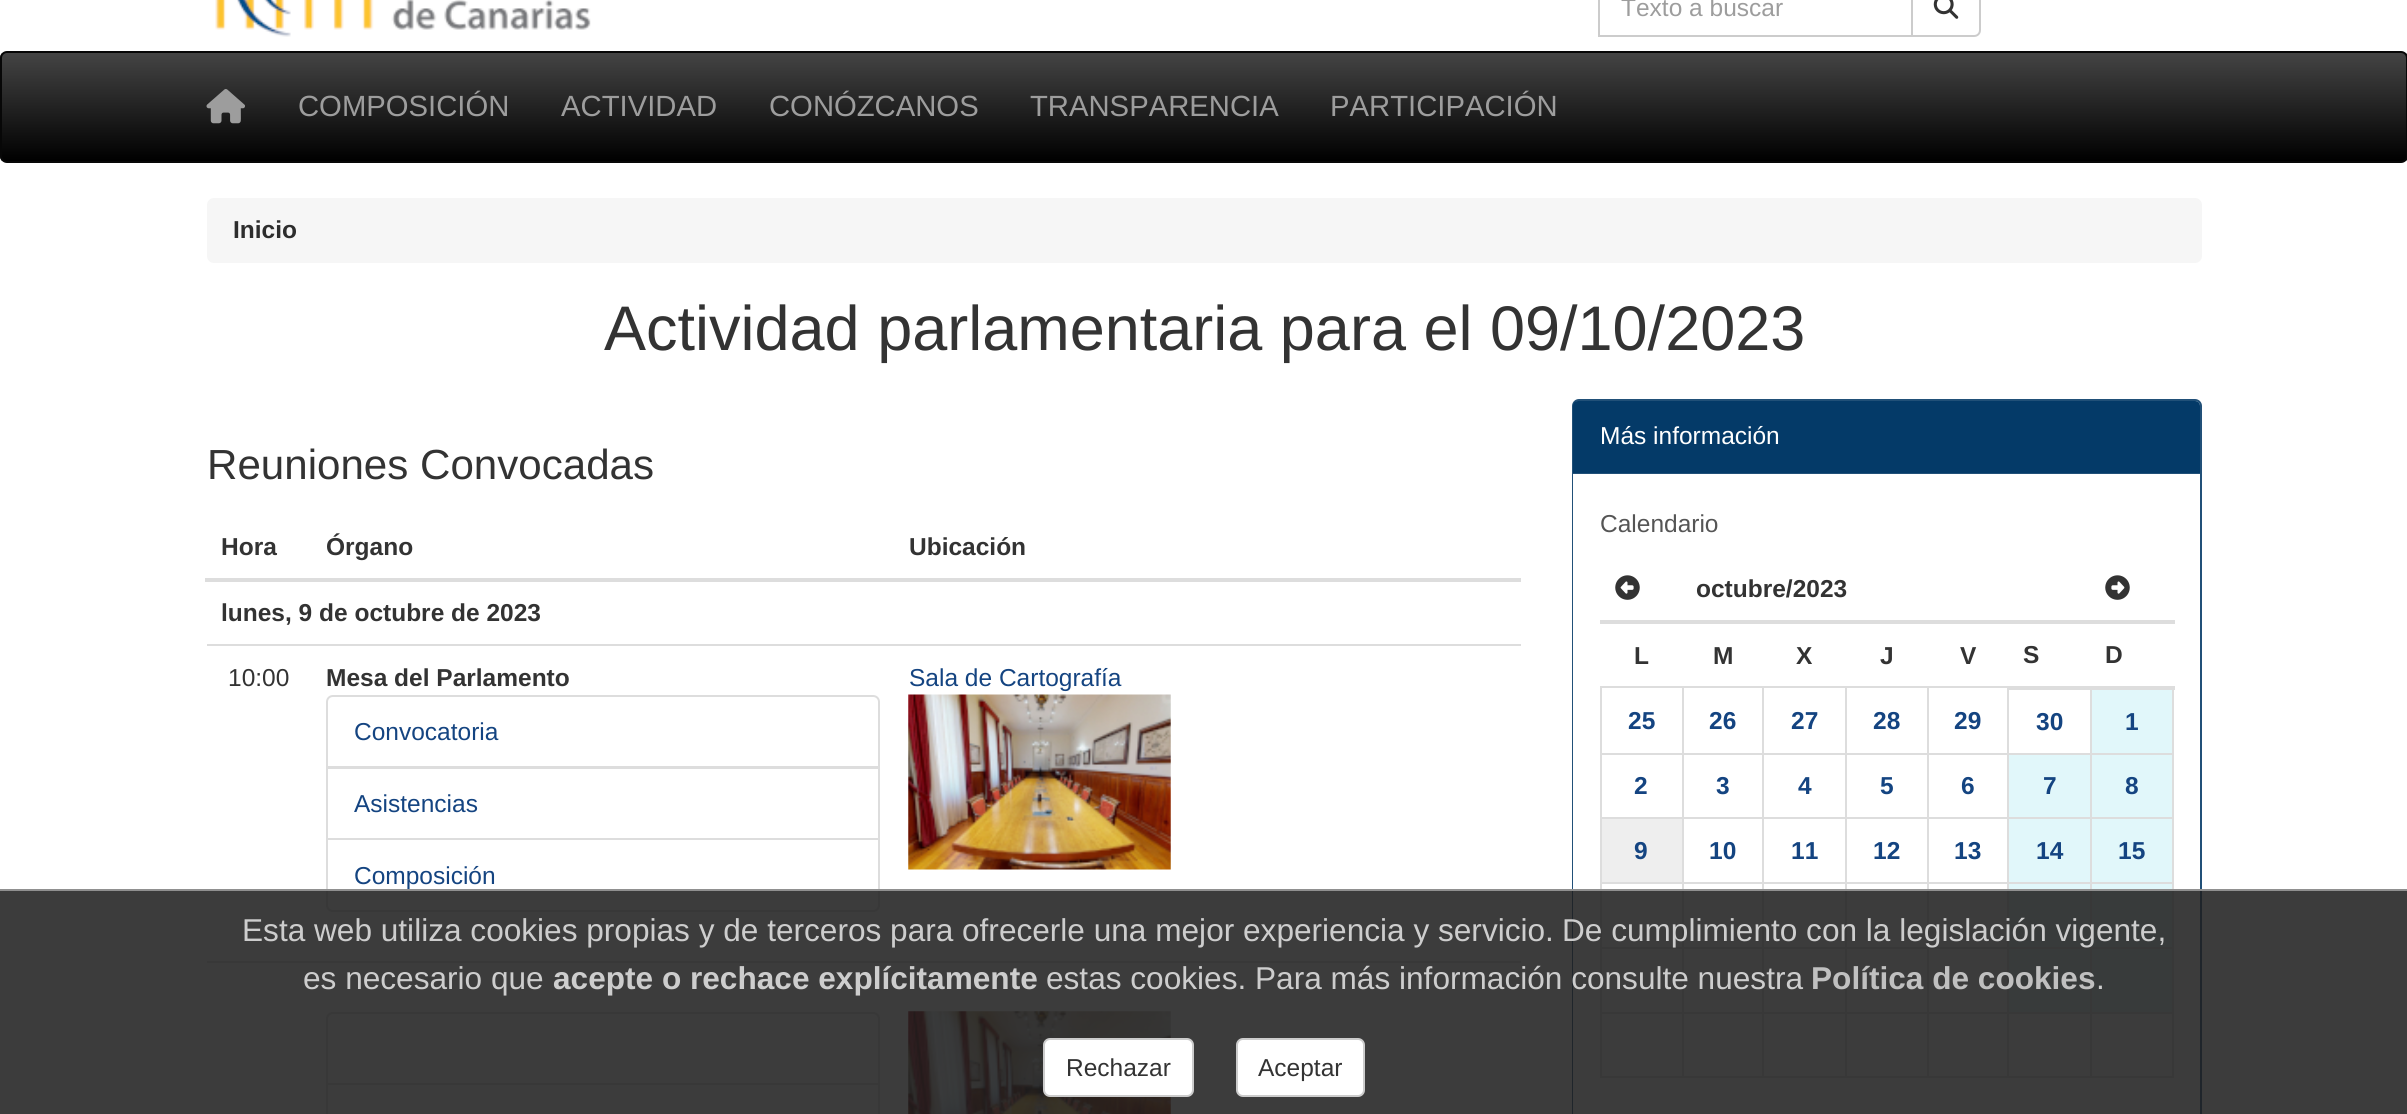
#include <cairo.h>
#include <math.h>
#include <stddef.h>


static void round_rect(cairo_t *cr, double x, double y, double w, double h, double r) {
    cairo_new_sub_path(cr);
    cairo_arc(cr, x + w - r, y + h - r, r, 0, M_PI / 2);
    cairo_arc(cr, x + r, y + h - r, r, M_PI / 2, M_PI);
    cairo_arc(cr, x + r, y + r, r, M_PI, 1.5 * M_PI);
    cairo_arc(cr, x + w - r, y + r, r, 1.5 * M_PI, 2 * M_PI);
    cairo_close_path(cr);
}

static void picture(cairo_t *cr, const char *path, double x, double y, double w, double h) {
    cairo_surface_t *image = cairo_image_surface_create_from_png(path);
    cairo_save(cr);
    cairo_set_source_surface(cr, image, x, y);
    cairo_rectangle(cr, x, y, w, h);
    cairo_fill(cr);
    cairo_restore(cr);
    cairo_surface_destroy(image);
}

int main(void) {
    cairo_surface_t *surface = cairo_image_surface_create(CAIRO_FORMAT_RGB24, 2407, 1114);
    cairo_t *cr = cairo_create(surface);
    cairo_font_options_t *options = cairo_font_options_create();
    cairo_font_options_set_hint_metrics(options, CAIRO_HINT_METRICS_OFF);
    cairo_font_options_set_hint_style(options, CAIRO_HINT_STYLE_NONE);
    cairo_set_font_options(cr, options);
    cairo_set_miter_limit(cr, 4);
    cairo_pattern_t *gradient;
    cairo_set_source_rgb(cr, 1, 1, 1);
    cairo_paint(cr);
    picture(cr, "img1.png", 215, 0, 376, 37);
    cairo_rectangle(cr, 1599, -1, 313, 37);
    cairo_set_source_rgb(cr, 0.8, 0.8, 0.8);
    cairo_stroke(cr);
    cairo_select_font_face(cr, "Liberation Sans", CAIRO_FONT_SLANT_NORMAL, CAIRO_FONT_WEIGHT_NORMAL);
    cairo_set_font_size(cr, 24.5);
    cairo_set_source_rgb(cr, 0.616, 0.616, 0.616);
    cairo_move_to(cr, 1621, 16);
    cairo_show_text(cr, "Texto a buscar");
    cairo_set_source_rgb(cr, 1, 1, 1);
    cairo_new_path(cr);
    cairo_move_to(cr, 1912, -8);
    cairo_line_to(cr, 1974, -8);
    cairo_curve_to(cr, 1977.5, -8, 1980, -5.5, 1980, -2);
    cairo_line_to(cr, 1980, 30);
    cairo_curve_to(cr, 1980, 33.5, 1977.5, 36, 1974, 36);
    cairo_line_to(cr, 1912, 36);
    cairo_close_path(cr);
    cairo_fill_preserve(cr);
    cairo_set_source_rgb(cr, 0.8, 0.8, 0.8);
    cairo_stroke(cr);
    picture(cr, "img2.png", 1933, 0, 26, 19);
    cairo_save(cr);
    round_rect(cr, 0, 51, 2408, 112, 7);
    cairo_clip(cr);
    gradient = cairo_pattern_create_linear(1204, 161, 1204, 53);
    cairo_pattern_add_color_stop_rgba(gradient, 0, 0, 0, 0, 1);
    cairo_pattern_add_color_stop_rgba(gradient, 1, 0.267, 0.267, 0.267, 1);
    cairo_set_source(cr, gradient);
    cairo_pattern_destroy(gradient);
    cairo_rectangle(cr, 0, 53, 2407, 108);
    cairo_fill(cr);
    cairo_restore(cr);
    round_rect(cr, 1, 52, 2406, 110, 6);
    cairo_set_source_rgb(cr, 0.031, 0.031, 0.031);
    cairo_stroke(cr);
    picture(cr, "img3.png", 206, 89, 39, 35);
    cairo_set_font_size(cr, 29.25);
    cairo_set_source_rgb(cr, 0.616, 0.616, 0.616);
    cairo_move_to(cr, 298, 116);
    cairo_show_text(cr, "COMPOSICIÓN");
    cairo_move_to(cr, 561, 116);
    cairo_show_text(cr, "ACTIVIDAD");
    cairo_move_to(cr, 769, 116);
    cairo_show_text(cr, "CONÓZCANOS");
    cairo_move_to(cr, 1030, 116);
    cairo_show_text(cr, "TRANSPARENCIA");
    cairo_move_to(cr, 1330, 116);
    cairo_show_text(cr, "PARTICIPACIÓN");
    cairo_set_source_rgb(cr, 0.961, 0.961, 0.961);
    round_rect(cr, 207, 198, 1995, 65, 7);
    cairo_fill(cr);
    cairo_select_font_face(cr, "Liberation Sans", CAIRO_FONT_SLANT_NORMAL, CAIRO_FONT_WEIGHT_BOLD);
    cairo_set_font_size(cr, 24.5);
    cairo_set_source_rgb(cr, 0.176, 0.176, 0.176);
    cairo_move_to(cr, 233, 238);
    cairo_show_text(cr, "Inicio");
    cairo_select_font_face(cr, "Liberation Sans", CAIRO_FONT_SLANT_NORMAL, CAIRO_FONT_WEIGHT_NORMAL);
    cairo_set_font_size(cr, 63);
    cairo_set_source_rgb(cr, 0.2, 0.2, 0.2);
    cairo_move_to(cr, 604, 350);
    cairo_show_text(cr, "Actividad parlamentaria para el 09/10/2023");
    cairo_set_font_size(cr, 42.1);
    cairo_move_to(cr, 207, 479);
    cairo_show_text(cr, "Reuniones Convocadas");
    cairo_select_font_face(cr, "Liberation Sans", CAIRO_FONT_SLANT_NORMAL, CAIRO_FONT_WEIGHT_BOLD);
    cairo_set_font_size(cr, 24.5);
    cairo_move_to(cr, 221, 555);
    cairo_show_text(cr, "Hora");
    cairo_move_to(cr, 326, 555);
    cairo_show_text(cr, "Órgano");
    cairo_set_source_rgb(cr, 0.867, 0.867, 0.867);
    cairo_rectangle(cr, 205, 578, 1316, 4);
    cairo_fill(cr);
    cairo_set_source_rgb(cr, 0.2, 0.2, 0.2);
    cairo_move_to(cr, 909, 555);
    cairo_show_text(cr, "Ubicación");
    cairo_move_to(cr, 221, 621);
    cairo_show_text(cr, "lunes, 9 de octubre de 2023");
    cairo_select_font_face(cr, "Liberation Sans", CAIRO_FONT_SLANT_NORMAL, CAIRO_FONT_WEIGHT_NORMAL);
    cairo_move_to(cr, 228, 686);
    cairo_show_text(cr, "10:00");
    cairo_select_font_face(cr, "Liberation Sans", CAIRO_FONT_SLANT_NORMAL, CAIRO_FONT_WEIGHT_BOLD);
    cairo_move_to(cr, 326, 686);
    cairo_show_text(cr, "Mesa del Parlamento");
    cairo_new_path(cr);
    cairo_move_to(cr, 333, 696);
    cairo_line_to(cr, 873, 696);
    cairo_curve_to(cr, 876.5, 696, 879, 698.5, 879, 702);
    cairo_line_to(cr, 879, 767);
    cairo_line_to(cr, 327, 767);
    cairo_line_to(cr, 327, 702);
    cairo_curve_to(cr, 327, 698.5, 329.5, 696, 333, 696);
    cairo_close_path(cr);
    cairo_set_source_rgb(cr, 0.867, 0.867, 0.867);
    cairo_stroke(cr);
    cairo_select_font_face(cr, "Liberation Sans", CAIRO_FONT_SLANT_NORMAL, CAIRO_FONT_WEIGHT_NORMAL);
    cairo_set_source_rgb(cr, 0.082, 0.267, 0.506);
    cairo_move_to(cr, 354, 740);
    cairo_show_text(cr, "Convocatoria");
    cairo_rectangle(cr, 327, 768, 552, 71);
    cairo_set_source_rgb(cr, 0.867, 0.867, 0.867);
    cairo_stroke(cr);
    cairo_set_source_rgb(cr, 0.082, 0.267, 0.506);
    cairo_move_to(cr, 354, 812);
    cairo_show_text(cr, "Asistencias");
    cairo_set_source_rgb(cr, 1, 1, 1);
    cairo_new_path(cr);
    cairo_move_to(cr, 327, 839);
    cairo_line_to(cr, 879, 839);
    cairo_line_to(cr, 879, 905);
    cairo_curve_to(cr, 879, 908.5, 876.5, 911, 873, 911);
    cairo_line_to(cr, 333, 911);
    cairo_curve_to(cr, 329.5, 911, 327, 908.5, 327, 905);
    cairo_close_path(cr);
    cairo_fill_preserve(cr);
    cairo_set_source_rgb(cr, 0.867, 0.867, 0.867);
    cairo_stroke(cr);
    cairo_set_source_rgb(cr, 0.082, 0.267, 0.506);
    cairo_move_to(cr, 354, 884);
    cairo_show_text(cr, "Composición");
    cairo_set_source_rgb(cr, 0.867, 0.867, 0.867);
    cairo_rectangle(cr, 207, 644, 1314, 2);
    cairo_fill(cr);
    cairo_set_source_rgb(cr, 0.082, 0.267, 0.506);
    cairo_move_to(cr, 909, 686);
    cairo_show_text(cr, "Sala de Cartografía");
    picture(cr, "img4.png", 908, 694, 263, 176);
    cairo_set_source_rgb(cr, 0.867, 0.867, 0.867);
    cairo_rectangle(cr, 207, 961, 1314, 2);
    cairo_fill(cr);
    picture(cr, "img5.png", 908, 1011, 263, 103);
    cairo_new_path(cr);
    cairo_move_to(cr, 333, 1013);
    cairo_line_to(cr, 873, 1013);
    cairo_curve_to(cr, 876.5, 1013, 879, 1015.5, 879, 1019);
    cairo_line_to(cr, 879, 1084);
    cairo_line_to(cr, 327, 1084);
    cairo_line_to(cr, 327, 1019);
    cairo_curve_to(cr, 327, 1015.5, 329.5, 1013, 333, 1013);
    cairo_close_path(cr);
    cairo_stroke(cr);
    cairo_rectangle(cr, 327, 1084, 552, 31);
    cairo_stroke(cr);
    round_rect(cr, 1573, 400, 628, 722, 6);
    cairo_set_source_rgb(cr, 0.129, 0.314, 0.471);
    cairo_stroke(cr);
    cairo_set_source_rgb(cr, 0.016, 0.227, 0.408);
    cairo_new_path(cr);
    cairo_move_to(cr, 1578, 401);
    cairo_line_to(cr, 2195, 401);
    cairo_curve_to(cr, 2198, 401, 2200, 403, 2200, 406);
    cairo_line_to(cr, 2200, 474);
    cairo_line_to(cr, 1573, 474);
    cairo_line_to(cr, 1573, 406);
    cairo_curve_to(cr, 1573, 403, 1575, 401, 1578, 401);
    cairo_close_path(cr);
    cairo_fill(cr);
    cairo_set_source_rgb(cr, 0.129, 0.314, 0.471);
    cairo_rectangle(cr, 1573, 473, 627, 1);
    cairo_fill(cr);
    cairo_set_source_rgb(cr, 1, 1, 1);
    cairo_move_to(cr, 1600, 444);
    cairo_show_text(cr, "Más información");
    cairo_rectangle(cr, 1573, 474, 1, 640);
    cairo_fill(cr);
    cairo_set_source_rgb(cr, 0.333, 0.333, 0.333);
    cairo_move_to(cr, 1600, 532);
    cairo_show_text(cr, "Calendario");
    cairo_set_source_rgb(cr, 0.867, 0.867, 0.867);
    cairo_rectangle(cr, 1600, 620, 575, 4);
    cairo_fill(cr);
    picture(cr, "img6.png", 2105, 575, 25, 25);
    picture(cr, "img7.png", 1615, 575, 25, 25);
    cairo_select_font_face(cr, "Liberation Sans", CAIRO_FONT_SLANT_NORMAL, CAIRO_FONT_WEIGHT_BOLD);
    cairo_set_source_rgb(cr, 0.2, 0.2, 0.2);
    cairo_move_to(cr, 1696, 597);
    cairo_show_text(cr, "octubre/2023");
    cairo_move_to(cr, 1634, 664);
    cairo_show_text(cr, "L");
    cairo_move_to(cr, 1713, 664);
    cairo_show_text(cr, "M");
    cairo_move_to(cr, 1796, 664);
    cairo_show_text(cr, "X");
    cairo_move_to(cr, 1880, 664);
    cairo_show_text(cr, "J");
    cairo_move_to(cr, 1960, 664);
    cairo_show_text(cr, "V");
    cairo_move_to(cr, 2023, 663);
    cairo_show_text(cr, "S");
    cairo_set_source_rgb(cr, 0.867, 0.867, 0.867);
    cairo_rectangle(cr, 2090, 753, 84, 2);
    cairo_fill(cr);
    cairo_rectangle(cr, 2090, 817, 84, 2);
    cairo_fill(cr);
    cairo_rectangle(cr, 2090, 882, 84, 2);
    cairo_fill(cr);
    cairo_rectangle(cr, 2090, 947, 84, 2);
    cairo_fill(cr);
    cairo_rectangle(cr, 2090, 1012, 84, 2);
    cairo_fill(cr);
    cairo_rectangle(cr, 2172, 1012, 2, 66);
    cairo_fill(cr);
    cairo_rectangle(cr, 2090, 1076, 84, 2);
    cairo_fill(cr);
    cairo_rectangle(cr, 2090, 1012, 2, 66);
    cairo_fill(cr);
    cairo_rectangle(cr, 2007, 1012, 84, 2);
    cairo_fill(cr);
    cairo_rectangle(cr, 2090, 947, 2, 66);
    cairo_fill(cr);
    cairo_rectangle(cr, 2007, 947, 84, 2);
    cairo_fill(cr);
    cairo_rectangle(cr, 2090, 882, 2, 67);
    cairo_fill(cr);
    cairo_rectangle(cr, 2007, 882, 84, 2);
    cairo_fill(cr);
    cairo_rectangle(cr, 2090, 817, 2, 67);
    cairo_fill(cr);
    cairo_rectangle(cr, 2007, 817, 84, 2);
    cairo_fill(cr);
    cairo_rectangle(cr, 2090, 753, 2, 66);
    cairo_fill(cr);
    cairo_rectangle(cr, 2007, 753, 84, 2);
    cairo_fill(cr);
    cairo_rectangle(cr, 2007, 1076, 84, 2);
    cairo_fill(cr);
    cairo_rectangle(cr, 2007, 1012, 2, 66);
    cairo_fill(cr);
    cairo_rectangle(cr, 1927, 1012, 82, 2);
    cairo_fill(cr);
    cairo_rectangle(cr, 2007, 947, 2, 66);
    cairo_fill(cr);
    cairo_rectangle(cr, 1927, 947, 82, 2);
    cairo_fill(cr);
    cairo_rectangle(cr, 2007, 882, 2, 67);
    cairo_fill(cr);
    cairo_rectangle(cr, 1927, 882, 82, 2);
    cairo_fill(cr);
    cairo_rectangle(cr, 2007, 817, 2, 67);
    cairo_fill(cr);
    cairo_rectangle(cr, 1927, 817, 82, 2);
    cairo_fill(cr);
    cairo_rectangle(cr, 2007, 753, 2, 66);
    cairo_fill(cr);
    cairo_rectangle(cr, 1927, 753, 82, 2);
    cairo_fill(cr);
    cairo_rectangle(cr, 2007, 686, 2, 68);
    cairo_fill(cr);
    cairo_rectangle(cr, 1927, 686, 82, 2);
    cairo_fill(cr);
    cairo_rectangle(cr, 2090, 686, 2, 68);
    cairo_fill(cr);
    cairo_rectangle(cr, 2172, 947, 2, 66);
    cairo_fill(cr);
    cairo_rectangle(cr, 2172, 882, 2, 67);
    cairo_fill(cr);
    cairo_rectangle(cr, 2172, 817, 2, 67);
    cairo_fill(cr);
    cairo_rectangle(cr, 2172, 686, 2, 133);
    cairo_fill(cr);
    cairo_rectangle(cr, 2007, 686, 168, 4);
    cairo_fill(cr);
    cairo_set_source_rgb(cr, 0.2, 0.2, 0.2);
    cairo_move_to(cr, 2105, 663);
    cairo_show_text(cr, "D");
    cairo_set_source_rgb(cr, 0.867, 0.867, 0.867);
    cairo_rectangle(cr, 1927, 1076, 82, 2);
    cairo_fill(cr);
    cairo_rectangle(cr, 1927, 1012, 2, 66);
    cairo_fill(cr);
    cairo_rectangle(cr, 1845, 1012, 84, 2);
    cairo_fill(cr);
    cairo_rectangle(cr, 1927, 947, 2, 66);
    cairo_fill(cr);
    cairo_rectangle(cr, 1845, 947, 84, 2);
    cairo_fill(cr);
    cairo_rectangle(cr, 1927, 882, 2, 67);
    cairo_fill(cr);
    cairo_rectangle(cr, 1845, 882, 84, 2);
    cairo_fill(cr);
    cairo_rectangle(cr, 1927, 817, 2, 67);
    cairo_fill(cr);
    cairo_rectangle(cr, 1845, 817, 84, 2);
    cairo_fill(cr);
    cairo_rectangle(cr, 1927, 753, 2, 66);
    cairo_fill(cr);
    cairo_rectangle(cr, 1845, 753, 84, 2);
    cairo_fill(cr);
    cairo_rectangle(cr, 1927, 686, 2, 68);
    cairo_fill(cr);
    cairo_rectangle(cr, 1845, 686, 84, 2);
    cairo_fill(cr);
    cairo_rectangle(cr, 1845, 1076, 84, 2);
    cairo_fill(cr);
    cairo_rectangle(cr, 1845, 1012, 2, 66);
    cairo_fill(cr);
    cairo_rectangle(cr, 1762, 1012, 84, 2);
    cairo_fill(cr);
    cairo_rectangle(cr, 1845, 947, 2, 66);
    cairo_fill(cr);
    cairo_rectangle(cr, 1762, 947, 84, 2);
    cairo_fill(cr);
    cairo_rectangle(cr, 1845, 882, 2, 67);
    cairo_fill(cr);
    cairo_rectangle(cr, 1762, 882, 84, 2);
    cairo_fill(cr);
    cairo_rectangle(cr, 1845, 817, 2, 67);
    cairo_fill(cr);
    cairo_rectangle(cr, 1762, 817, 84, 2);
    cairo_fill(cr);
    cairo_rectangle(cr, 1845, 753, 2, 66);
    cairo_fill(cr);
    cairo_rectangle(cr, 1762, 753, 84, 2);
    cairo_fill(cr);
    cairo_rectangle(cr, 1845, 686, 2, 68);
    cairo_fill(cr);
    cairo_rectangle(cr, 1762, 686, 84, 2);
    cairo_fill(cr);
    cairo_rectangle(cr, 1762, 1076, 84, 2);
    cairo_fill(cr);
    cairo_rectangle(cr, 1762, 1012, 2, 66);
    cairo_fill(cr);
    cairo_rectangle(cr, 1682, 1012, 82, 2);
    cairo_fill(cr);
    cairo_rectangle(cr, 1762, 947, 2, 66);
    cairo_fill(cr);
    cairo_rectangle(cr, 1682, 947, 82, 2);
    cairo_fill(cr);
    cairo_rectangle(cr, 1762, 882, 2, 67);
    cairo_fill(cr);
    cairo_rectangle(cr, 1682, 882, 82, 2);
    cairo_fill(cr);
    cairo_rectangle(cr, 1762, 817, 2, 67);
    cairo_fill(cr);
    cairo_rectangle(cr, 1682, 817, 82, 2);
    cairo_fill(cr);
    cairo_rectangle(cr, 1762, 753, 2, 66);
    cairo_fill(cr);
    cairo_rectangle(cr, 1682, 753, 82, 2);
    cairo_fill(cr);
    cairo_rectangle(cr, 1762, 686, 2, 68);
    cairo_fill(cr);
    cairo_rectangle(cr, 1682, 686, 82, 2);
    cairo_fill(cr);
    cairo_rectangle(cr, 1682, 1076, 82, 2);
    cairo_fill(cr);
    cairo_rectangle(cr, 1682, 1012, 2, 66);
    cairo_fill(cr);
    cairo_rectangle(cr, 1600, 1012, 84, 2);
    cairo_fill(cr);
    cairo_rectangle(cr, 1682, 947, 2, 66);
    cairo_fill(cr);
    cairo_rectangle(cr, 1600, 947, 84, 2);
    cairo_fill(cr);
    cairo_rectangle(cr, 1682, 882, 2, 67);
    cairo_fill(cr);
    cairo_rectangle(cr, 1600, 882, 84, 2);
    cairo_fill(cr);
    cairo_rectangle(cr, 1682, 817, 2, 67);
    cairo_fill(cr);
    cairo_rectangle(cr, 1600, 817, 84, 2);
    cairo_fill(cr);
    cairo_rectangle(cr, 1682, 753, 2, 66);
    cairo_fill(cr);
    cairo_rectangle(cr, 1600, 753, 84, 2);
    cairo_fill(cr);
    cairo_rectangle(cr, 1682, 686, 2, 68);
    cairo_fill(cr);
    cairo_rectangle(cr, 1600, 686, 84, 2);
    cairo_fill(cr);
    cairo_rectangle(cr, 1600, 1076, 84, 2);
    cairo_fill(cr);
    cairo_rectangle(cr, 1600, 1012, 2, 66);
    cairo_fill(cr);
    cairo_rectangle(cr, 1600, 947, 2, 66);
    cairo_fill(cr);
    cairo_rectangle(cr, 1600, 882, 2, 67);
    cairo_fill(cr);
    cairo_rectangle(cr, 1600, 817, 2, 67);
    cairo_fill(cr);
    cairo_rectangle(cr, 1600, 753, 2, 66);
    cairo_fill(cr);
    cairo_rectangle(cr, 1600, 686, 2, 68);
    cairo_fill(cr);
    cairo_set_source_rgb(cr, 0.082, 0.267, 0.506);
    cairo_move_to(cr, 1628, 729);
    cairo_show_text(cr, "25");
    cairo_move_to(cr, 1709, 729);
    cairo_show_text(cr, "26");
    cairo_move_to(cr, 1791, 729);
    cairo_show_text(cr, "27");
    cairo_move_to(cr, 1873, 729);
    cairo_show_text(cr, "28");
    cairo_move_to(cr, 1954, 729);
    cairo_show_text(cr, "29");
    cairo_move_to(cr, 2036, 730);
    cairo_show_text(cr, "30");
    cairo_set_source_rgb(cr, 0.882, 0.965, 0.98);
    cairo_rectangle(cr, 2092, 690, 80, 63);
    cairo_fill(cr);
    cairo_set_source_rgb(cr, 0.082, 0.267, 0.506);
    cairo_move_to(cr, 2125, 730);
    cairo_show_text(cr, "1");
    cairo_move_to(cr, 1634, 794);
    cairo_show_text(cr, "2");
    cairo_move_to(cr, 1716, 794);
    cairo_show_text(cr, "3");
    cairo_move_to(cr, 1798, 794);
    cairo_show_text(cr, "4");
    cairo_move_to(cr, 1880, 794);
    cairo_show_text(cr, "5");
    cairo_move_to(cr, 1961, 794);
    cairo_show_text(cr, "6");
    cairo_set_source_rgb(cr, 0.882, 0.965, 0.98);
    cairo_rectangle(cr, 2009, 755, 81, 62);
    cairo_fill(cr);
    cairo_set_source_rgb(cr, 0.082, 0.267, 0.506);
    cairo_move_to(cr, 2043, 794);
    cairo_show_text(cr, "7");
    cairo_set_source_rgb(cr, 0.882, 0.965, 0.98);
    cairo_rectangle(cr, 2092, 755, 80, 62);
    cairo_fill(cr);
    cairo_set_source_rgb(cr, 0.082, 0.267, 0.506);
    cairo_move_to(cr, 2125, 794);
    cairo_show_text(cr, "8");
    cairo_set_source_rgb(cr, 0.933, 0.933, 0.933);
    cairo_rectangle(cr, 1602, 819, 80, 63);
    cairo_fill(cr);
    cairo_set_source_rgb(cr, 0.082, 0.267, 0.506);
    cairo_move_to(cr, 1634, 859);
    cairo_show_text(cr, "9");
    cairo_move_to(cr, 1709, 859);
    cairo_show_text(cr, "10");
    cairo_move_to(cr, 1791, 859);
    cairo_show_text(cr, "11");
    cairo_move_to(cr, 1873, 859);
    cairo_show_text(cr, "12");
    cairo_move_to(cr, 1954, 859);
    cairo_show_text(cr, "13");
    cairo_set_source_rgb(cr, 0.882, 0.965, 0.98);
    cairo_rectangle(cr, 2009, 819, 81, 63);
    cairo_fill(cr);
    cairo_set_source_rgb(cr, 0.082, 0.267, 0.506);
    cairo_move_to(cr, 2036, 859);
    cairo_show_text(cr, "14");
    cairo_set_source_rgb(cr, 0.882, 0.965, 0.98);
    cairo_rectangle(cr, 2092, 819, 80, 63);
    cairo_fill(cr);
    cairo_set_source_rgb(cr, 0.082, 0.267, 0.506);
    cairo_move_to(cr, 2118, 859);
    cairo_show_text(cr, "15");
    cairo_set_source_rgb(cr, 0.882, 0.965, 0.98);
    cairo_rectangle(cr, 2009, 884, 81, 63);
    cairo_fill(cr);
    cairo_rectangle(cr, 2092, 884, 80, 63);
    cairo_fill(cr);
    cairo_rectangle(cr, 2009, 949, 81, 63);
    cairo_fill(cr);
    cairo_rectangle(cr, 2092, 949, 80, 63);
    cairo_fill(cr);
    cairo_set_source_rgba(cr, 0.125, 0.125, 0.125, 0.87);
    cairo_rectangle(cr, 0, 891, 2407, 223);
    cairo_fill(cr);
    cairo_set_source_rgb(cr, 0.565, 0.565, 0.565);
    cairo_rectangle(cr, 0, 889, 2407, 2);
    cairo_fill(cr);
    cairo_select_font_face(cr, "Liberation Sans", CAIRO_FONT_SLANT_NORMAL, CAIRO_FONT_WEIGHT_NORMAL);
    cairo_set_font_size(cr, 31.6);
    cairo_set_source_rgb(cr, 0.804, 0.804, 0.804);
    cairo_move_to(cr, 242, 941);
    cairo_show_text(cr, "Esta web utiliza cookies propias y de terceros para");
    cairo_move_to(cr, 962, 941);
    cairo_show_text(cr, "ofrecerle una mejor experiencia y servicio.");
    cairo_move_to(cr, 1562, 941);
    cairo_show_text(cr, "De cumplimiento con la legislación vigente,");
    cairo_move_to(cr, 303, 989);
    cairo_show_text(cr, "es necesario que");
    cairo_select_font_face(cr, "Liberation Sans", CAIRO_FONT_SLANT_NORMAL, CAIRO_FONT_WEIGHT_BOLD);
    cairo_move_to(cr, 553, 989);
    cairo_show_text(cr, "acepte o rechace explícitamente");
    cairo_select_font_face(cr, "Liberation Sans", CAIRO_FONT_SLANT_NORMAL, CAIRO_FONT_WEIGHT_NORMAL);
    cairo_move_to(cr, 1046, 989);
    cairo_show_text(cr, "estas cookies. Para más información consulte nuestra");
    cairo_select_font_face(cr, "Liberation Sans", CAIRO_FONT_SLANT_NORMAL, CAIRO_FONT_WEIGHT_BOLD);
    cairo_set_source_rgb(cr, 0.753, 0.753, 0.753);
    cairo_move_to(cr, 1811, 989);
    cairo_show_text(cr, "Política de cookies");
    cairo_select_font_face(cr, "Liberation Sans", CAIRO_FONT_SLANT_NORMAL, CAIRO_FONT_WEIGHT_NORMAL);
    cairo_set_source_rgb(cr, 0.804, 0.804, 0.804);
    cairo_move_to(cr, 2096, 989);
    cairo_show_text(cr, ".");
    cairo_set_source_rgb(cr, 1, 1, 1);
    round_rect(cr, 1044, 1039, 149, 57, 6);
    cairo_fill_preserve(cr);
    cairo_set_source_rgb(cr, 0.8, 0.8, 0.8);
    cairo_stroke(cr);
    cairo_set_font_size(cr, 24.5);
    cairo_set_source_rgb(cr, 0.2, 0.2, 0.2);
    cairo_move_to(cr, 1066, 1076);
    cairo_show_text(cr, "Rechazar");
    cairo_set_source_rgb(cr, 1, 1, 1);
    round_rect(cr, 1237, 1039, 127, 57, 6);
    cairo_fill_preserve(cr);
    cairo_set_source_rgb(cr, 0.8, 0.8, 0.8);
    cairo_stroke(cr);
    cairo_set_source_rgb(cr, 0.2, 0.2, 0.2);
    cairo_move_to(cr, 1258, 1076);
    cairo_show_text(cr, "Aceptar");
    cairo_surface_write_to_png(surface, "page.png");
    cairo_font_options_destroy(options);
    cairo_destroy(cr);
    cairo_surface_destroy(surface);
    return 0;
}
